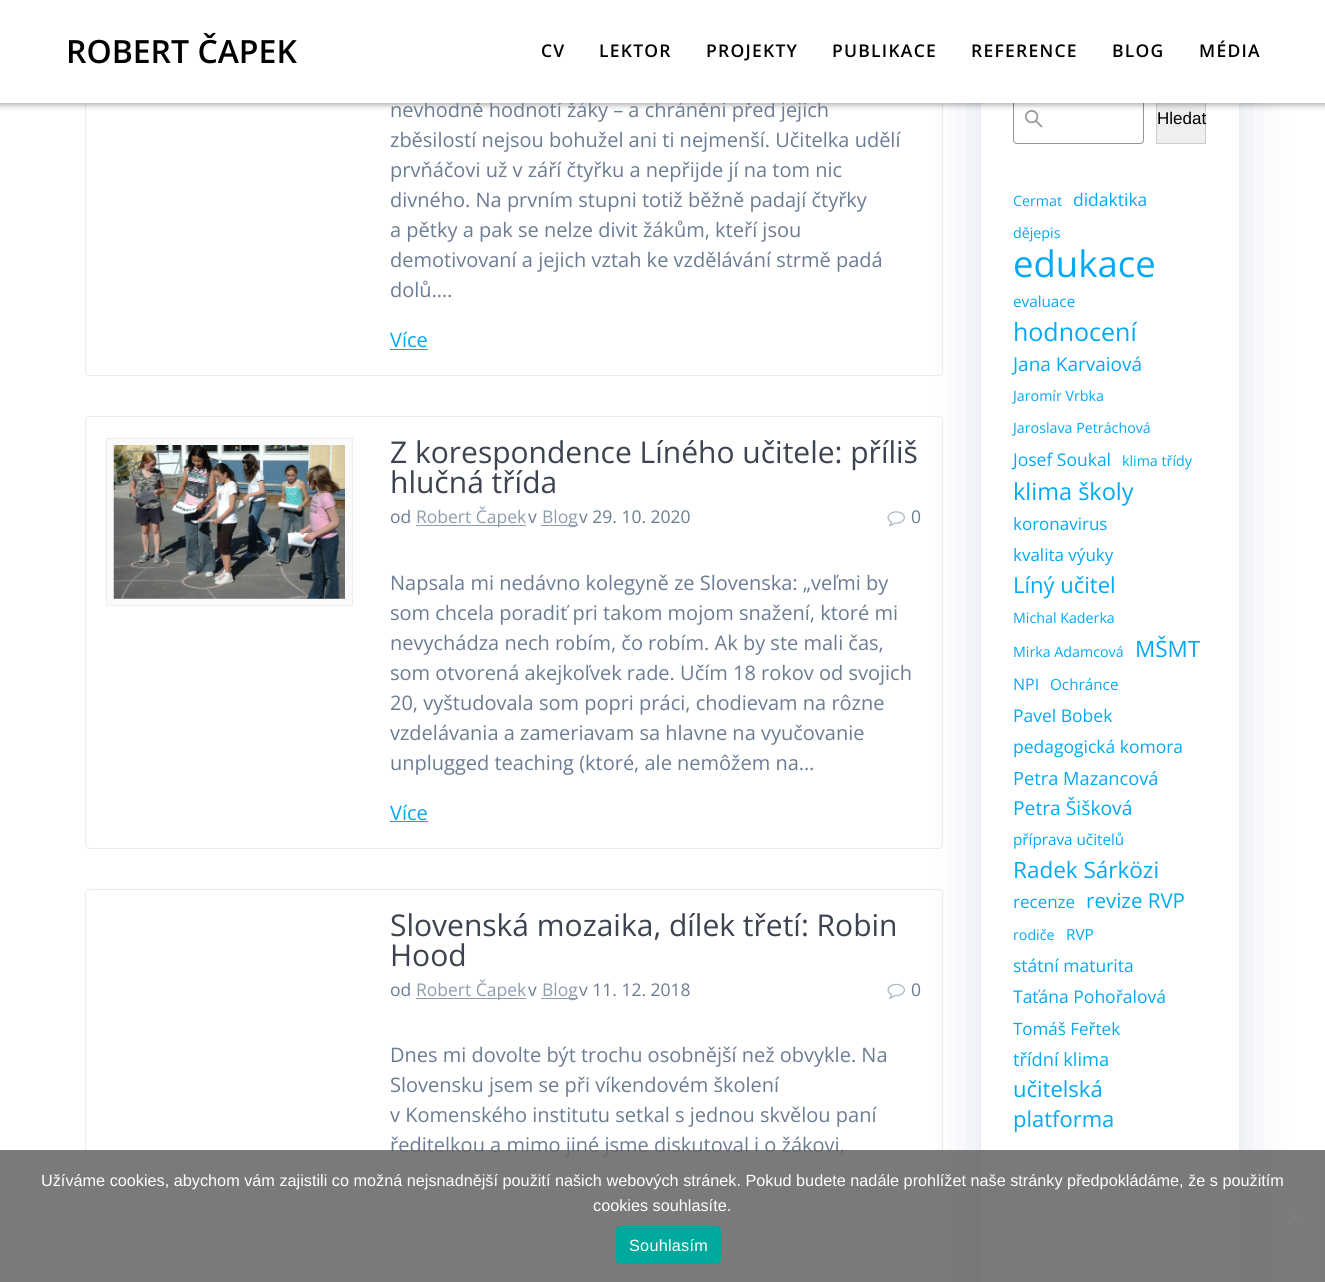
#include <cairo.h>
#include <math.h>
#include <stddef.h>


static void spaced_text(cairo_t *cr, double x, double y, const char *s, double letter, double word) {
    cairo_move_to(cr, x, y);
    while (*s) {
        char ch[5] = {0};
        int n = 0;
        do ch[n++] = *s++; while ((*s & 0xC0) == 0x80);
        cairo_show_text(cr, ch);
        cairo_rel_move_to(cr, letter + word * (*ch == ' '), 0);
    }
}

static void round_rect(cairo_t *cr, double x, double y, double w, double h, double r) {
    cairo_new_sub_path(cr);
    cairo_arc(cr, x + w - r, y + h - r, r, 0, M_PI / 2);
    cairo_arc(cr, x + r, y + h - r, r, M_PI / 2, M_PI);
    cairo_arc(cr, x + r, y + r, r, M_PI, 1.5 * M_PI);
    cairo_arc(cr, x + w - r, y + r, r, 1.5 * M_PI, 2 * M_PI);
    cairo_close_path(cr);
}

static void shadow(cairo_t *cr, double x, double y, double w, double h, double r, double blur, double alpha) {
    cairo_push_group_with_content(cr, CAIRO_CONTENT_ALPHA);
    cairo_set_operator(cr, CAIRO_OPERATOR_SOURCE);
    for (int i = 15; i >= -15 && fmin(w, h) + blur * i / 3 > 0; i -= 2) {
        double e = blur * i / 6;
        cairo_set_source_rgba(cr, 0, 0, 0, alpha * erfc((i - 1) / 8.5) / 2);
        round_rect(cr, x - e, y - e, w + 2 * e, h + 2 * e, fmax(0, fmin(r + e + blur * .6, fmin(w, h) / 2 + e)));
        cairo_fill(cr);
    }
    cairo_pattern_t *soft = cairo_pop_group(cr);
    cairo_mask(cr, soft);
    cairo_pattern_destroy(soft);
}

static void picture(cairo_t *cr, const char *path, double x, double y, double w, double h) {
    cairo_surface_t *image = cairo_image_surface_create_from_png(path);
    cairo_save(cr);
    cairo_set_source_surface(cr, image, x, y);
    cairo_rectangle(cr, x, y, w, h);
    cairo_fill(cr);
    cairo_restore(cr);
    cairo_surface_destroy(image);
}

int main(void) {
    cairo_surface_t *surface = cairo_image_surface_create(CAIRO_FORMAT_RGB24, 1325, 1282);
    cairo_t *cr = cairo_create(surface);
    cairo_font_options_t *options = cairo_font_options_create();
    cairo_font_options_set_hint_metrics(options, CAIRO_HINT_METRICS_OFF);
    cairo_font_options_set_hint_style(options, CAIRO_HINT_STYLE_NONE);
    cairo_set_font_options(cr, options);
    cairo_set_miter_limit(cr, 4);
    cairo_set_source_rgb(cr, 1, 1, 1);
    cairo_paint(cr);
    round_rect(cr, 85.5, -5.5, 857, 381, 4.5);
    cairo_set_source_rgb(cr, 0.925, 0.925, 0.925);
    cairo_set_line_width(cr, 1);
    cairo_stroke(cr);
    round_rect(cr, 85.5, 416.5, 857, 432, 4.5);
    cairo_stroke(cr);
    picture(cr, "img2.png", 887, 511, 18, 16);
    round_rect(cr, 85.5, 889.5, 857, 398, 4.5);
    cairo_stroke(cr);
    picture(cr, "img3.png", 887, 983, 18, 16);
    cairo_save(cr);
    cairo_set_fill_rule(cr, CAIRO_FILL_RULE_EVEN_ODD);
    cairo_new_path(cr);
    cairo_move_to(cr, 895, 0);
    cairo_line_to(cr, 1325, 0);
    cairo_line_to(cr, 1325, 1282);
    cairo_line_to(cr, 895, 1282);
    cairo_close_path(cr);
    cairo_move_to(cr, 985, -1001);
    cairo_line_to(cr, 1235, -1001);
    cairo_curve_to(cr, 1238, -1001, 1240, -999, 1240, -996);
    cairo_line_to(cr, 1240, 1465);
    cairo_curve_to(cr, 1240, 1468, 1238, 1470, 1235, 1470);
    cairo_line_to(cr, 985, 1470);
    cairo_curve_to(cr, 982, 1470, 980, 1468, 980, 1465);
    cairo_line_to(cr, 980, -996);
    cairo_curve_to(cr, 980, -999, 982, -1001, 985, -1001);
    cairo_close_path(cr);
    cairo_clip(cr);
    cairo_set_source_rgb(cr, 0.137, 0.271, 0.596);
    shadow(cr, 980, -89, 260, 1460, 5, 28, 0.15);
    cairo_restore(cr);
    cairo_rectangle(cr, 980.5, -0.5, 259, 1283);
    cairo_stroke(cr);
    picture(cr, "img4.png", 1025, 110, 18, 18);
    round_rect(cr, 1013.5, 94.5, 130, 49, 3.5);
    cairo_set_source_rgb(cr, 0.58, 0.58, 0.58);
    cairo_stroke(cr);
    cairo_set_source_rgb(cr, 0.937, 0.937, 0.937);
    cairo_rectangle(cr, 1157, 103, 48, 40);
    cairo_fill(cr);
    cairo_rectangle(cr, 1156.5, 94.5, 49, 49);
    cairo_set_source_rgb(cr, 0.8, 0.8, 0.8);
    cairo_stroke(cr);
    cairo_set_source_rgb(cr, 0, 0, 0);
    shadow(cr, -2, -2, 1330, 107, 0, 3, 0.33);
    cairo_select_font_face(cr, "Open Sans", CAIRO_FONT_SLANT_NORMAL, CAIRO_FONT_WEIGHT_NORMAL);
    cairo_set_font_size(cr, 20);
    cairo_set_source_rgb(cr, 0.42, 0.486, 0.576);
    cairo_move_to(cr, 390, 117);
    cairo_show_text(cr, "nevhodně hodnotí žáky – a chráněni před jejich");
    cairo_set_source_rgb(cr, 1, 1, 1);
    cairo_rectangle(cr, 0, 0, 1325, 103);
    cairo_fill(cr);
    cairo_select_font_face(cr, "Open Sans SemiBold", CAIRO_FONT_SLANT_NORMAL, CAIRO_FONT_WEIGHT_NORMAL);
    cairo_set_font_size(cr, 32);
    cairo_set_source_rgb(cr, 0, 0, 0);
    cairo_move_to(cr, 66, 63);
    cairo_show_text(cr, "ROBERT ČAPEK");
    cairo_set_font_size(cr, 17.5);
    spaced_text(cr, 541, 57, "CV", 1.25, 0);
    spaced_text(cr, 599, 57, "LEKTOR", 1.25, 0);
    spaced_text(cr, 706, 57, "PROJEKTY", 1.25, 0);
    spaced_text(cr, 832, 57, "PUBLIKACE", 1.25, 0);
    spaced_text(cr, 971, 57, "REFERENCE", 1.25, 0);
    spaced_text(cr, 1112, 57, "BLOG", 1.25, 0);
    spaced_text(cr, 1199, 57, "MÉDIA", 1.25, 0);
    cairo_select_font_face(cr, "Open Sans", CAIRO_FONT_SLANT_NORMAL, CAIRO_FONT_WEIGHT_NORMAL);
    cairo_set_font_size(cr, 20);
    cairo_set_source_rgb(cr, 0.42, 0.486, 0.576);
    cairo_move_to(cr, 390, 147);
    cairo_show_text(cr, "zběsilostí nejsou bohužel ani ti nejmenší. Učitelka udělí");
    cairo_move_to(cr, 390, 177);
    cairo_show_text(cr, "prvňáčovi už v září čtyřku a nepřijde jí na tom nic");
    cairo_move_to(cr, 390, 207);
    cairo_show_text(cr, "divného. Na prvním stupni totiž běžně padají čtyřky");
    cairo_move_to(cr, 390, 237);
    cairo_show_text(cr, "a pětky a pak se nelze divit žákům, kteří jsou");
    cairo_move_to(cr, 390, 267);
    cairo_show_text(cr, "demotivovaní a jejich vztah ke vzdělávání strmě padá");
    cairo_move_to(cr, 390, 297);
    cairo_show_text(cr, "dolů.…");
    cairo_set_source_rgb(cr, 0.012, 0.663, 0.957);
    cairo_move_to(cr, 390, 347);
    cairo_show_text(cr, "Více");
    cairo_rectangle(cr, 390, 349, 38, 1);
    cairo_fill(cr);
    cairo_set_source_rgb(cr, 0.98, 0.98, 0.98);
    cairo_rectangle(cr, 106.5, 438.5, 246, 167);
    cairo_fill_preserve(cr);
    cairo_set_source_rgb(cr, 0.925, 0.925, 0.925);
    cairo_stroke(cr);
    picture(cr, "img1.png", 113, 445, 232, 154);
    cairo_set_font_size(cr, 30);
    cairo_set_source_rgb(cr, 0.235, 0.259, 0.31);
    cairo_move_to(cr, 390, 463);
    cairo_show_text(cr, "Z korespondence Líného učitele: příliš");
    cairo_move_to(cr, 390, 493);
    cairo_show_text(cr, "hlučná třída");
    cairo_set_font_size(cr, 17.5);
    cairo_set_source_rgb(cr, 0.42, 0.486, 0.576);
    cairo_move_to(cr, 390, 523);
    cairo_show_text(cr, "od");
    cairo_set_source_rgb(cr, 0.557, 0.616, 0.682);
    cairo_rectangle(cr, 416, 525, 110, 1);
    cairo_fill(cr);
    cairo_move_to(cr, 416, 523);
    cairo_show_text(cr, "Robert Čapek");
    cairo_set_source_rgb(cr, 0.42, 0.486, 0.576);
    cairo_move_to(cr, 528, 523);
    cairo_show_text(cr, "v");
    cairo_set_source_rgb(cr, 0.557, 0.616, 0.682);
    cairo_rectangle(cr, 541, 525, 37, 1);
    cairo_fill(cr);
    cairo_move_to(cr, 542, 523);
    cairo_show_text(cr, "Blog");
    cairo_set_source_rgb(cr, 0.42, 0.486, 0.576);
    cairo_move_to(cr, 579, 523);
    cairo_show_text(cr, "v 29. 10. 2020");
    cairo_move_to(cr, 911, 523);
    cairo_show_text(cr, "0");
    cairo_set_font_size(cr, 20);
    cairo_move_to(cr, 390, 590);
    cairo_show_text(cr, "Napsala mi nedávno kolegyně ze Slovenska: „veľmi by");
    cairo_move_to(cr, 390, 620);
    cairo_show_text(cr, "som chcela poradiť pri takom mojom snažení, ktoré mi");
    cairo_move_to(cr, 390, 650);
    cairo_show_text(cr, "nevychádza nech robím, čo robím. Ak by ste mali čas,");
    cairo_move_to(cr, 390, 680);
    cairo_show_text(cr, "som otvorená akejkoľvek rade. Učím 18 rokov od svojich");
    cairo_move_to(cr, 390, 710);
    cairo_show_text(cr, "20, vyštudovala som popri práci, chodievam na rôzne");
    cairo_move_to(cr, 390, 740);
    cairo_show_text(cr, "vzdelávania a zameriavam sa hlavne na vyučovanie");
    cairo_move_to(cr, 390, 770);
    cairo_show_text(cr, "unplugged teaching (ktoré, ale nemôžem na…");
    cairo_set_source_rgb(cr, 0.012, 0.663, 0.957);
    cairo_move_to(cr, 390, 820);
    cairo_show_text(cr, "Více");
    cairo_rectangle(cr, 390, 821, 38, 1);
    cairo_fill(cr);
    cairo_set_font_size(cr, 30);
    cairo_set_source_rgb(cr, 0.235, 0.259, 0.31);
    cairo_move_to(cr, 390, 936);
    cairo_show_text(cr, "Slovenská mozaika, dílek třetí: Robin");
    cairo_move_to(cr, 390, 966);
    cairo_show_text(cr, "Hood");
    cairo_set_font_size(cr, 17.5);
    cairo_set_source_rgb(cr, 0.42, 0.486, 0.576);
    cairo_move_to(cr, 390, 996);
    cairo_show_text(cr, "od");
    cairo_set_source_rgb(cr, 0.557, 0.616, 0.682);
    cairo_rectangle(cr, 416, 998, 110, 1);
    cairo_fill(cr);
    cairo_move_to(cr, 416, 996);
    cairo_show_text(cr, "Robert Čapek");
    cairo_set_source_rgb(cr, 0.42, 0.486, 0.576);
    cairo_move_to(cr, 528, 996);
    cairo_show_text(cr, "v");
    cairo_set_source_rgb(cr, 0.557, 0.616, 0.682);
    cairo_rectangle(cr, 541, 998, 37, 1);
    cairo_fill(cr);
    cairo_move_to(cr, 542, 996);
    cairo_show_text(cr, "Blog");
    cairo_set_source_rgb(cr, 0.42, 0.486, 0.576);
    cairo_move_to(cr, 579, 996);
    cairo_show_text(cr, "v 11. 12. 2018");
    cairo_move_to(cr, 911, 996);
    cairo_show_text(cr, "0");
    cairo_set_font_size(cr, 20);
    cairo_move_to(cr, 390, 1062);
    cairo_show_text(cr, "Dnes mi dovolte být trochu osobnější než obvykle. Na");
    cairo_move_to(cr, 390, 1092);
    cairo_show_text(cr, "Slovensku jsem se při víkendovém školení");
    cairo_move_to(cr, 390, 1122);
    cairo_show_text(cr, "v Komenského institutu setkal s jednou skvělou paní");
    cairo_move_to(cr, 390, 1152);
    cairo_show_text(cr, "ředitelkou a mimo jiné jsme diskutoval i o žákovi,");
    cairo_select_font_face(cr, "Liberation Sans", CAIRO_FONT_SLANT_NORMAL, CAIRO_FONT_WEIGHT_NORMAL);
    cairo_set_font_size(cr, 17);
    cairo_set_source_rgb(cr, 0, 0, 0);
    cairo_move_to(cr, 1157, 124);
    cairo_show_text(cr, "Hledat");
    cairo_select_font_face(cr, "Open Sans", CAIRO_FONT_SLANT_NORMAL, CAIRO_FONT_WEIGHT_NORMAL);
    cairo_set_font_size(cr, 14.25);
    cairo_set_source_rgb(cr, 0.012, 0.663, 0.957);
    cairo_move_to(cr, 1013, 206);
    cairo_show_text(cr, "Cermat");
    cairo_set_font_size(cr, 17.5);
    cairo_move_to(cr, 1073, 206);
    cairo_show_text(cr, "didaktika");
    cairo_set_font_size(cr, 14.25);
    cairo_move_to(cr, 1013, 238);
    cairo_show_text(cr, "dějepis");
    cairo_set_font_size(cr, 36.5);
    cairo_move_to(cr, 1013, 277);
    cairo_show_text(cr, "edukace");
    cairo_set_font_size(cr, 15.25);
    cairo_move_to(cr, 1013, 307);
    cairo_show_text(cr, "evaluace");
    cairo_set_font_size(cr, 25);
    cairo_move_to(cr, 1013, 341);
    cairo_show_text(cr, "hodnocení");
    cairo_set_font_size(cr, 19);
    cairo_move_to(cr, 1013, 371);
    cairo_show_text(cr, "Jana Karvaiová");
    cairo_set_font_size(cr, 14.25);
    cairo_move_to(cr, 1013, 401);
    cairo_show_text(cr, "Jaromír Vrbka");
    cairo_move_to(cr, 1013, 433);
    cairo_show_text(cr, "Jaroslava Petráchová");
    cairo_set_font_size(cr, 17.5);
    cairo_move_to(cr, 1013, 466);
    cairo_show_text(cr, "Josef Soukal");
    cairo_set_font_size(cr, 14.25);
    cairo_move_to(cr, 1122, 466);
    cairo_show_text(cr, "klima třídy");
    cairo_set_font_size(cr, 23.5);
    cairo_move_to(cr, 1013, 500);
    cairo_show_text(cr, "klima školy");
    cairo_set_font_size(cr, 17);
    cairo_move_to(cr, 1013, 530);
    cairo_show_text(cr, "koronavirus");
    cairo_move_to(cr, 1013, 561);
    cairo_show_text(cr, "kvalita výuky");
    cairo_set_font_size(cr, 22);
    cairo_move_to(cr, 1013, 593);
    cairo_show_text(cr, "Líný učitel");
    cairo_set_font_size(cr, 14.25);
    cairo_move_to(cr, 1013, 623);
    cairo_show_text(cr, "Michal Kaderka");
    cairo_move_to(cr, 1013, 657);
    cairo_show_text(cr, "Mirka Adamcová");
    cairo_set_font_size(cr, 22.5);
    cairo_move_to(cr, 1135, 657);
    cairo_show_text(cr, "MŠMT");
    cairo_set_font_size(cr, 16);
    cairo_move_to(cr, 1013, 690);
    cairo_show_text(cr, "NPI");
    cairo_set_font_size(cr, 15.25);
    cairo_move_to(cr, 1050, 690);
    cairo_show_text(cr, "Ochránce");
    cairo_set_font_size(cr, 17.5);
    cairo_move_to(cr, 1013, 722);
    cairo_show_text(cr, "Pavel Bobek");
    cairo_move_to(cr, 1013, 753);
    cairo_show_text(cr, "pedagogická komora");
    cairo_set_font_size(cr, 18.25);
    cairo_move_to(cr, 1013, 785);
    cairo_show_text(cr, "Petra Mazancová");
    cairo_set_font_size(cr, 19.25);
    cairo_move_to(cr, 1013, 815);
    cairo_show_text(cr, "Petra Šišková");
    cairo_set_font_size(cr, 15.25);
    cairo_move_to(cr, 1013, 845);
    cairo_show_text(cr, "příprava učitelů");
    cairo_set_font_size(cr, 22.5);
    cairo_move_to(cr, 1013, 878);
    cairo_show_text(cr, "Radek Sárközi");
    cairo_set_font_size(cr, 17);
    cairo_move_to(cr, 1013, 908);
    cairo_show_text(cr, "recenze");
    cairo_set_font_size(cr, 20.5);
    cairo_move_to(cr, 1086, 908);
    cairo_show_text(cr, "revize RVP");
    cairo_set_font_size(cr, 14.25);
    cairo_move_to(cr, 1013, 940);
    cairo_show_text(cr, "rodiče");
    cairo_set_font_size(cr, 15.25);
    cairo_move_to(cr, 1066, 940);
    cairo_show_text(cr, "RVP");
    cairo_set_font_size(cr, 17.5);
    cairo_move_to(cr, 1013, 972);
    cairo_show_text(cr, "státní maturita");
    cairo_move_to(cr, 1013, 1003);
    cairo_show_text(cr, "Taťána Pohořalová");
    cairo_set_font_size(cr, 17);
    cairo_move_to(cr, 1013, 1035);
    cairo_show_text(cr, "Tomáš Feřtek");
    cairo_set_font_size(cr, 18.25);
    cairo_move_to(cr, 1013, 1066);
    cairo_show_text(cr, "třídní klima");
    cairo_set_font_size(cr, 22);
    cairo_move_to(cr, 1013, 1097);
    cairo_show_text(cr, "učitelská");
    cairo_move_to(cr, 1013, 1127);
    cairo_show_text(cr, "platforma");
    cairo_set_source_rgba(cr, 0.4, 0.4, 0.4, 0.87);
    cairo_rectangle(cr, 0, 1150, 1325, 132);
    cairo_fill(cr);
    cairo_select_font_face(cr, "Liberation Sans", CAIRO_FONT_SLANT_NORMAL, CAIRO_FONT_WEIGHT_NORMAL);
    cairo_set_font_size(cr, 16.25);
    cairo_set_source_rgb(cr, 1, 1, 1);
    cairo_move_to(cr, 41, 1186);
    cairo_show_text(cr, "Užíváme cookies, abychom vám zajistili co možná nejsnadnější použití našich webových stránek. Pokud budete nadále prohlížet naše stránky předpokládáme, že s použitím");
    cairo_move_to(cr, 593, 1211);
    cairo_show_text(cr, "cookies souhlasíte.");
    cairo_set_source_rgb(cr, 0.49, 0.49, 0.49);
    cairo_new_path(cr);
    cairo_move_to(cr, 1300.5, 1209.5);
    cairo_line_to(cr, 1302.5, 1211);
    cairo_line_to(cr, 1289.5, 1224.5);
    cairo_line_to(cr, 1287.5, 1222.5);
    cairo_close_path(cr);
    cairo_fill(cr);
    cairo_new_path(cr);
    cairo_move_to(cr, 1287.5, 1211);
    cairo_line_to(cr, 1289.5, 1209.5);
    cairo_line_to(cr, 1302.5, 1222.5);
    cairo_line_to(cr, 1300.5, 1224.5);
    cairo_close_path(cr);
    cairo_fill(cr);
    cairo_set_source_rgb(cr, 0, 0.663, 0.616);
    round_rect(cr, 616, 1226, 105, 38, 4);
    cairo_fill(cr);
    cairo_set_source_rgb(cr, 1, 1, 1);
    spaced_text(cr, 629, 1251, "Souhlasím", 0.25, 0);
    cairo_surface_write_to_png(surface, "page.png");
    cairo_font_options_destroy(options);
    cairo_destroy(cr);
    cairo_surface_destroy(surface);
    return 0;
}
